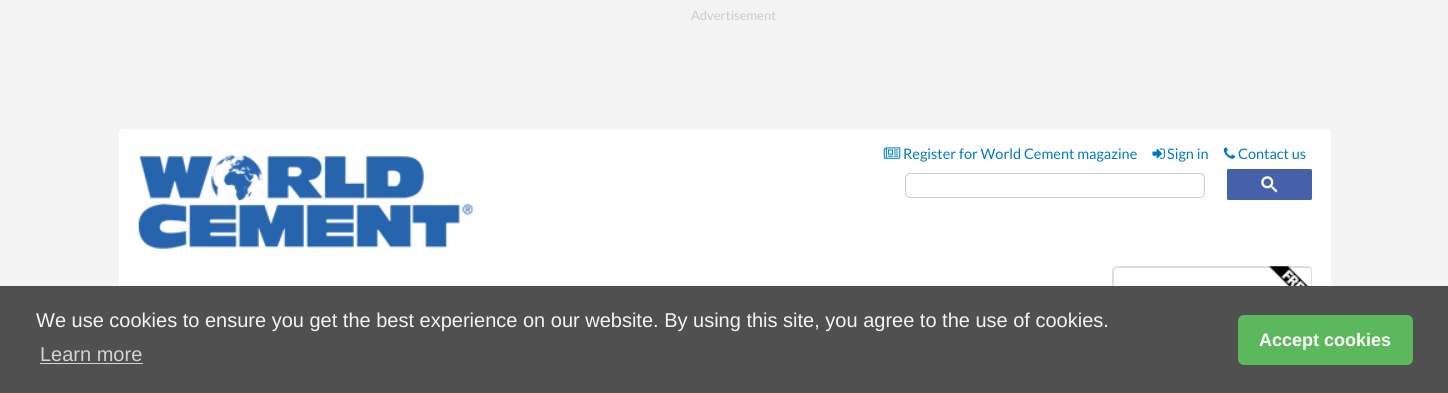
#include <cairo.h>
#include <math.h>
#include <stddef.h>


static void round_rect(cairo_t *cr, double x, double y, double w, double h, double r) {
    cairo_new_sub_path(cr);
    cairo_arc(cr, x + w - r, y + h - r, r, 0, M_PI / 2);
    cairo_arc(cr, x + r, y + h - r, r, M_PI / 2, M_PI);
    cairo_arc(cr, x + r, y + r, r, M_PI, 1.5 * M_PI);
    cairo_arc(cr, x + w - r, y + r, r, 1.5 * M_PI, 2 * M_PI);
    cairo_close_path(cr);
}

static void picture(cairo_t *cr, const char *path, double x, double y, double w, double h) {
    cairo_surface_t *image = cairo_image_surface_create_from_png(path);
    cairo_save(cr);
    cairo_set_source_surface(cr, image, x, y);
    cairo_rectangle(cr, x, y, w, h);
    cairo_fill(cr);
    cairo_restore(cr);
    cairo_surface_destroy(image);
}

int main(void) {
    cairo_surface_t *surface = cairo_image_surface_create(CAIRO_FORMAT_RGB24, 1448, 393);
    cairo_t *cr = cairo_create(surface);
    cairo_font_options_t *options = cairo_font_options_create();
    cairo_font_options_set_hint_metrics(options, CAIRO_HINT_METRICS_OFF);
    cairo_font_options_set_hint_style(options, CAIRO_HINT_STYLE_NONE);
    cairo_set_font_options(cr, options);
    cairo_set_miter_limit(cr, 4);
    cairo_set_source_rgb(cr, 0.957, 0.957, 0.957);
    cairo_paint(cr);
    cairo_select_font_face(cr, "Lato", CAIRO_FONT_SLANT_NORMAL, CAIRO_FONT_WEIGHT_NORMAL);
    cairo_set_font_size(cr, 13);
    cairo_set_source_rgb(cr, 0.8, 0.8, 0.8);
    cairo_move_to(cr, 691, 20);
    cairo_show_text(cr, "Advertisement");
    cairo_set_source_rgb(cr, 1, 1, 1);
    round_rect(cr, 119, 129, 1212, 49, 5);
    cairo_fill(cr);
    picture(cr, "img1.png", 883, 147, 18, 12);
    cairo_set_font_size(cr, 14.5);
    cairo_set_source_rgb(cr, 0, 0.478, 0.765);
    cairo_move_to(cr, 903, 159);
    cairo_show_text(cr, "Register for World Cement magazine");
    picture(cr, "img2.png", 1152, 148, 13, 11);
    cairo_move_to(cr, 1167, 159);
    cairo_show_text(cr, "Sign in");
    picture(cr, "img3.png", 1223, 147, 13, 12);
    cairo_move_to(cr, 1238, 159);
    cairo_show_text(cr, "Contact us");
    cairo_set_source_rgb(cr, 1, 1, 1);
    cairo_rectangle(cr, 119, 174, 1212, 112);
    cairo_fill(cr);
    picture(cr, "img4.png", 138, 154, 335, 95);
    round_rect(cr, 905.5, 173.5, 299, 24, 4.5);
    cairo_set_source_rgb(cr, 0.8, 0.8, 0.8);
    cairo_set_line_width(cr, 1);
    cairo_stroke(cr);
    cairo_set_source_rgb(cr, 0.271, 0.38, 0.675);
    round_rect(cr, 1226.5, 168.5, 86, 32, 2);
    cairo_fill_preserve(cr);
    cairo_set_source_rgb(cr, 1, 1, 1);
    cairo_stroke(cr);
    picture(cr, "img5.png", 1261, 176, 17, 17);
    cairo_set_source_rgb(cr, 0.867, 0.867, 0.867);
    cairo_set_fill_rule(cr, CAIRO_FILL_RULE_EVEN_ODD);
    cairo_new_path(cr);
    cairo_move_to(cr, 1118, 266);
    cairo_line_to(cr, 1308, 266);
    cairo_curve_to(cr, 1310, 266, 1312, 268, 1312, 271);
    cairo_line_to(cr, 1312, 318);
    cairo_line_to(cr, 1112, 318);
    cairo_line_to(cr, 1112, 271);
    cairo_curve_to(cr, 1112, 268, 1115, 266, 1118, 266);
    cairo_close_path(cr);
    cairo_move_to(cr, 1118, 268);
    cairo_line_to(cr, 1308, 268);
    cairo_curve_to(cr, 1310, 268, 1311, 269, 1311, 271);
    cairo_line_to(cr, 1311, 318);
    cairo_line_to(cr, 1114, 318);
    cairo_line_to(cr, 1114, 271);
    cairo_curve_to(cr, 1114, 269, 1115, 268, 1118, 268);
    cairo_close_path(cr);
    cairo_fill(cr);
    picture(cr, "img6.png", 1268, 266, 41, 20);
    cairo_set_source_rgb(cr, 0.314, 0.314, 0.314);
    cairo_rectangle(cr, 0, 286, 1448, 107);
    cairo_fill(cr);
    cairo_select_font_face(cr, "Liberation Sans", CAIRO_FONT_SLANT_NORMAL, CAIRO_FONT_WEIGHT_NORMAL);
    cairo_set_font_size(cr, 20);
    cairo_set_source_rgb(cr, 0.957, 0.957, 0.957);
    cairo_move_to(cr, 36, 327);
    cairo_show_text(cr, "We use cookies to ensure you get the best experience on our website. By using this site, you agree to the use of cookies.");
    cairo_set_source_rgb(cr, 0.827, 0.827, 0.827);
    cairo_move_to(cr, 40, 361);
    cairo_show_text(cr, "Learn more");
    cairo_rectangle(cr, 40, 363, 103, 1);
    cairo_fill(cr);
    cairo_set_source_rgb(cr, 0.361, 0.722, 0.361);
    round_rect(cr, 1238, 315, 175, 50, 6);
    cairo_fill(cr);
    cairo_select_font_face(cr, "Liberation Sans", CAIRO_FONT_SLANT_NORMAL, CAIRO_FONT_WEIGHT_BOLD);
    cairo_set_font_size(cr, 18);
    cairo_set_source_rgb(cr, 1, 1, 1);
    cairo_move_to(cr, 1259, 346);
    cairo_show_text(cr, "Accept cookies");
    cairo_surface_write_to_png(surface, "page.png");
    cairo_font_options_destroy(options);
    cairo_destroy(cr);
    cairo_surface_destroy(surface);
    return 0;
}
